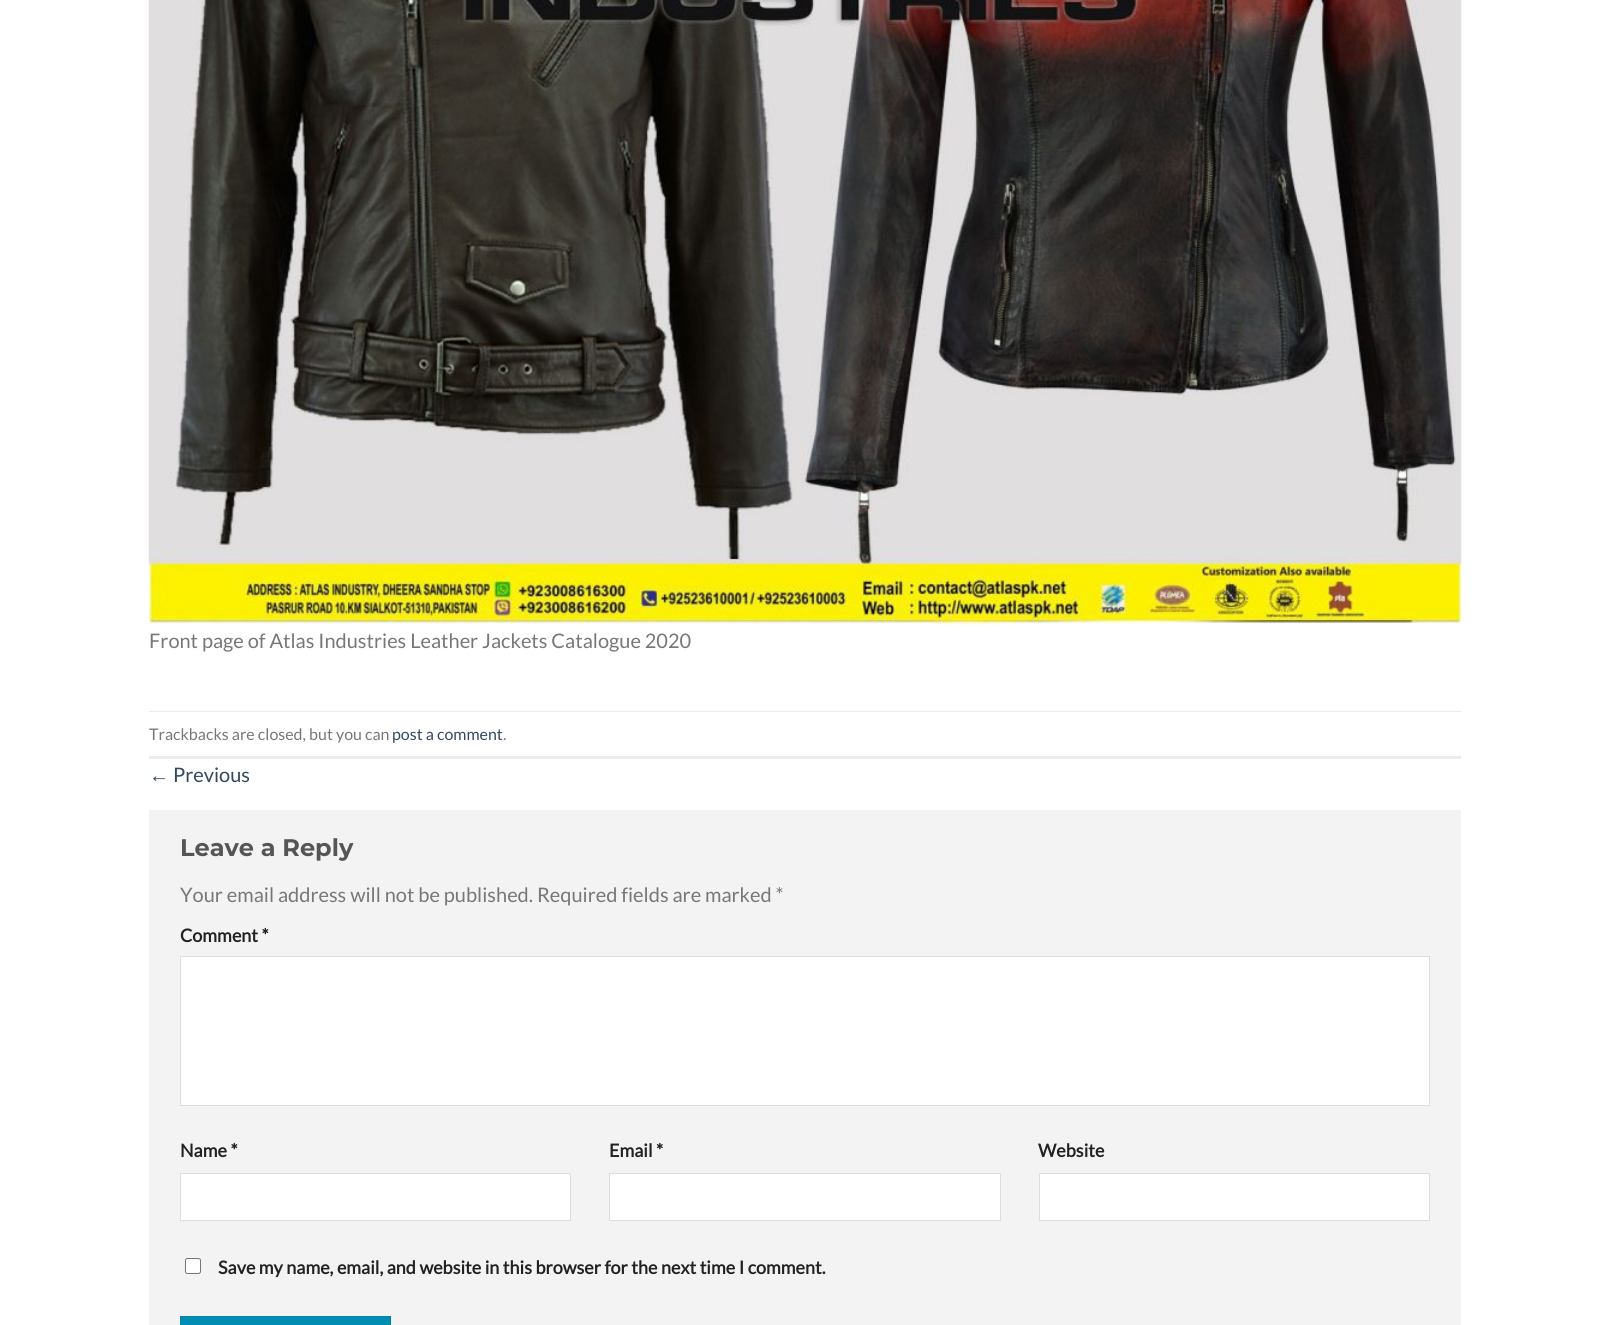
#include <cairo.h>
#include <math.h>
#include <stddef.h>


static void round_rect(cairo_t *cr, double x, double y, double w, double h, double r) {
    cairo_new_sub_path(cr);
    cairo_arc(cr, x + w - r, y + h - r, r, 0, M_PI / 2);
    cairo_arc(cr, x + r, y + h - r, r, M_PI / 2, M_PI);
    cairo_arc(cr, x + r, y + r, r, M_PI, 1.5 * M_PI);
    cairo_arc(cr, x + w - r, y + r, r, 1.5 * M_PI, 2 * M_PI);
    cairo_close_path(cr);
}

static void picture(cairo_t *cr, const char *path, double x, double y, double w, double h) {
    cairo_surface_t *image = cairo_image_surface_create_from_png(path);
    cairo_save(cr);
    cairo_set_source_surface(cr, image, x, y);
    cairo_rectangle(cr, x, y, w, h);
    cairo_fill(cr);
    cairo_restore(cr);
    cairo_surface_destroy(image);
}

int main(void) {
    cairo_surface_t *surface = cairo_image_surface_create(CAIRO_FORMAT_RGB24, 1610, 1325);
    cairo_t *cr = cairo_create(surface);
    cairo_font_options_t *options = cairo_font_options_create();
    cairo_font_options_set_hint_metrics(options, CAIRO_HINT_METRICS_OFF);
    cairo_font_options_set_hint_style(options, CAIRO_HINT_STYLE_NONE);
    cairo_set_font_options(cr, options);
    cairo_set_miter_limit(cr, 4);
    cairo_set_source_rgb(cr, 1, 1, 1);
    cairo_paint(cr);
    picture(cr, "img1.png", 148, 0, 1314, 624);
    cairo_select_font_face(cr, "Lato", CAIRO_FONT_SLANT_NORMAL, CAIRO_FONT_WEIGHT_NORMAL);
    cairo_set_font_size(cr, 20);
    cairo_set_source_rgb(cr, 0.467, 0.467, 0.467);
    cairo_move_to(cr, 149, 648);
    cairo_show_text(cr, "Front page of Atlas Industries Leather Jackets Catalogue 2020");
    cairo_set_source_rgb(cr, 0.925, 0.925, 0.925);
    cairo_rectangle(cr, 149, 711, 1312, 1);
    cairo_fill(cr);
    cairo_rectangle(cr, 149, 756, 1312, 3);
    cairo_fill(cr);
    cairo_set_font_size(cr, 16);
    cairo_set_source_rgb(cr, 0.467, 0.467, 0.467);
    cairo_move_to(cr, 149, 740);
    cairo_show_text(cr, "Trackbacks are closed, but you can");
    cairo_set_source_rgb(cr, 0.2, 0.282, 0.384);
    cairo_move_to(cr, 392, 740);
    cairo_show_text(cr, "post a comment");
    cairo_set_source_rgb(cr, 0.467, 0.467, 0.467);
    cairo_move_to(cr, 503, 740);
    cairo_show_text(cr, ".");
    cairo_select_font_face(cr, "Liberation Sans", CAIRO_FONT_SLANT_NORMAL, CAIRO_FONT_WEIGHT_NORMAL);
    cairo_set_font_size(cr, 20);
    cairo_set_source_rgb(cr, 0.2, 0.282, 0.384);
    cairo_move_to(cr, 149, 782);
    cairo_show_text(cr, "←");
    cairo_select_font_face(cr, "Lato", CAIRO_FONT_SLANT_NORMAL, CAIRO_FONT_WEIGHT_NORMAL);
    cairo_move_to(cr, 173, 782);
    cairo_show_text(cr, "Previous");
    cairo_set_source_rgb(cr, 0.953, 0.953, 0.953);
    cairo_rectangle(cr, 149, 810, 1312, 515);
    cairo_fill(cr);
    cairo_select_font_face(cr, "Montserrat", CAIRO_FONT_SLANT_NORMAL, CAIRO_FONT_WEIGHT_BOLD);
    cairo_set_font_size(cr, 24);
    cairo_set_source_rgb(cr, 0.333, 0.333, 0.333);
    cairo_move_to(cr, 180, 856);
    cairo_show_text(cr, "Leave a Reply");
    cairo_select_font_face(cr, "Lato", CAIRO_FONT_SLANT_NORMAL, CAIRO_FONT_WEIGHT_NORMAL);
    cairo_set_font_size(cr, 20);
    cairo_set_source_rgb(cr, 0.467, 0.467, 0.467);
    cairo_move_to(cr, 180, 902);
    cairo_show_text(cr, "Your email address will not be published. Required fields are marked *");
    cairo_select_font_face(cr, "Lato", CAIRO_FONT_SLANT_NORMAL, CAIRO_FONT_WEIGHT_BOLD);
    cairo_set_font_size(cr, 18);
    cairo_set_source_rgb(cr, 0.133, 0.133, 0.133);
    cairo_move_to(cr, 180, 942);
    cairo_show_text(cr, "Comment *");
    cairo_set_source_rgb(cr, 1, 1, 1);
    cairo_rectangle(cr, 180.5, 956.5, 1249, 149);
    cairo_fill_preserve(cr);
    cairo_set_source_rgb(cr, 0.867, 0.867, 0.867);
    cairo_set_line_width(cr, 1);
    cairo_stroke(cr);
    cairo_set_source_rgb(cr, 0.133, 0.133, 0.133);
    cairo_move_to(cr, 180, 1157);
    cairo_show_text(cr, "Name *");
    cairo_set_source_rgb(cr, 1, 1, 1);
    cairo_rectangle(cr, 180.5, 1173.5, 390, 47);
    cairo_fill_preserve(cr);
    cairo_set_source_rgb(cr, 0.867, 0.867, 0.867);
    cairo_stroke(cr);
    cairo_set_source_rgb(cr, 0.133, 0.133, 0.133);
    cairo_move_to(cr, 609, 1157);
    cairo_show_text(cr, "Email *");
    cairo_set_source_rgb(cr, 1, 1, 1);
    cairo_rectangle(cr, 609.5, 1173.5, 391, 47);
    cairo_fill_preserve(cr);
    cairo_set_source_rgb(cr, 0.867, 0.867, 0.867);
    cairo_stroke(cr);
    cairo_set_source_rgb(cr, 0.133, 0.133, 0.133);
    cairo_move_to(cr, 1038, 1157);
    cairo_show_text(cr, "Website");
    cairo_set_source_rgb(cr, 1, 1, 1);
    cairo_rectangle(cr, 1039.5, 1173.5, 390, 47);
    cairo_fill_preserve(cr);
    cairo_set_source_rgb(cr, 0.867, 0.867, 0.867);
    cairo_stroke(cr);
    cairo_set_source_rgb(cr, 1, 1, 1);
    round_rect(cr, 185.5, 1258.5, 15, 15, 2);
    cairo_fill_preserve(cr);
    cairo_set_source_rgb(cr, 0.463, 0.463, 0.463);
    cairo_stroke(cr);
    cairo_set_source_rgb(cr, 0.133, 0.133, 0.133);
    cairo_move_to(cr, 218, 1274);
    cairo_show_text(cr, "Save my name, email, and website in this browser for the next time I comment.");
    cairo_set_source_rgb(cr, 0, 0.549, 0.698);
    cairo_rectangle(cr, 180.5, 1316.5, 210, 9);
    cairo_fill_preserve(cr);
    cairo_set_source_rgb(cr, 0, 0.522, 0.663);
    cairo_stroke(cr);
    cairo_surface_write_to_png(surface, "page.png");
    cairo_font_options_destroy(options);
    cairo_destroy(cr);
    cairo_surface_destroy(surface);
    return 0;
}
